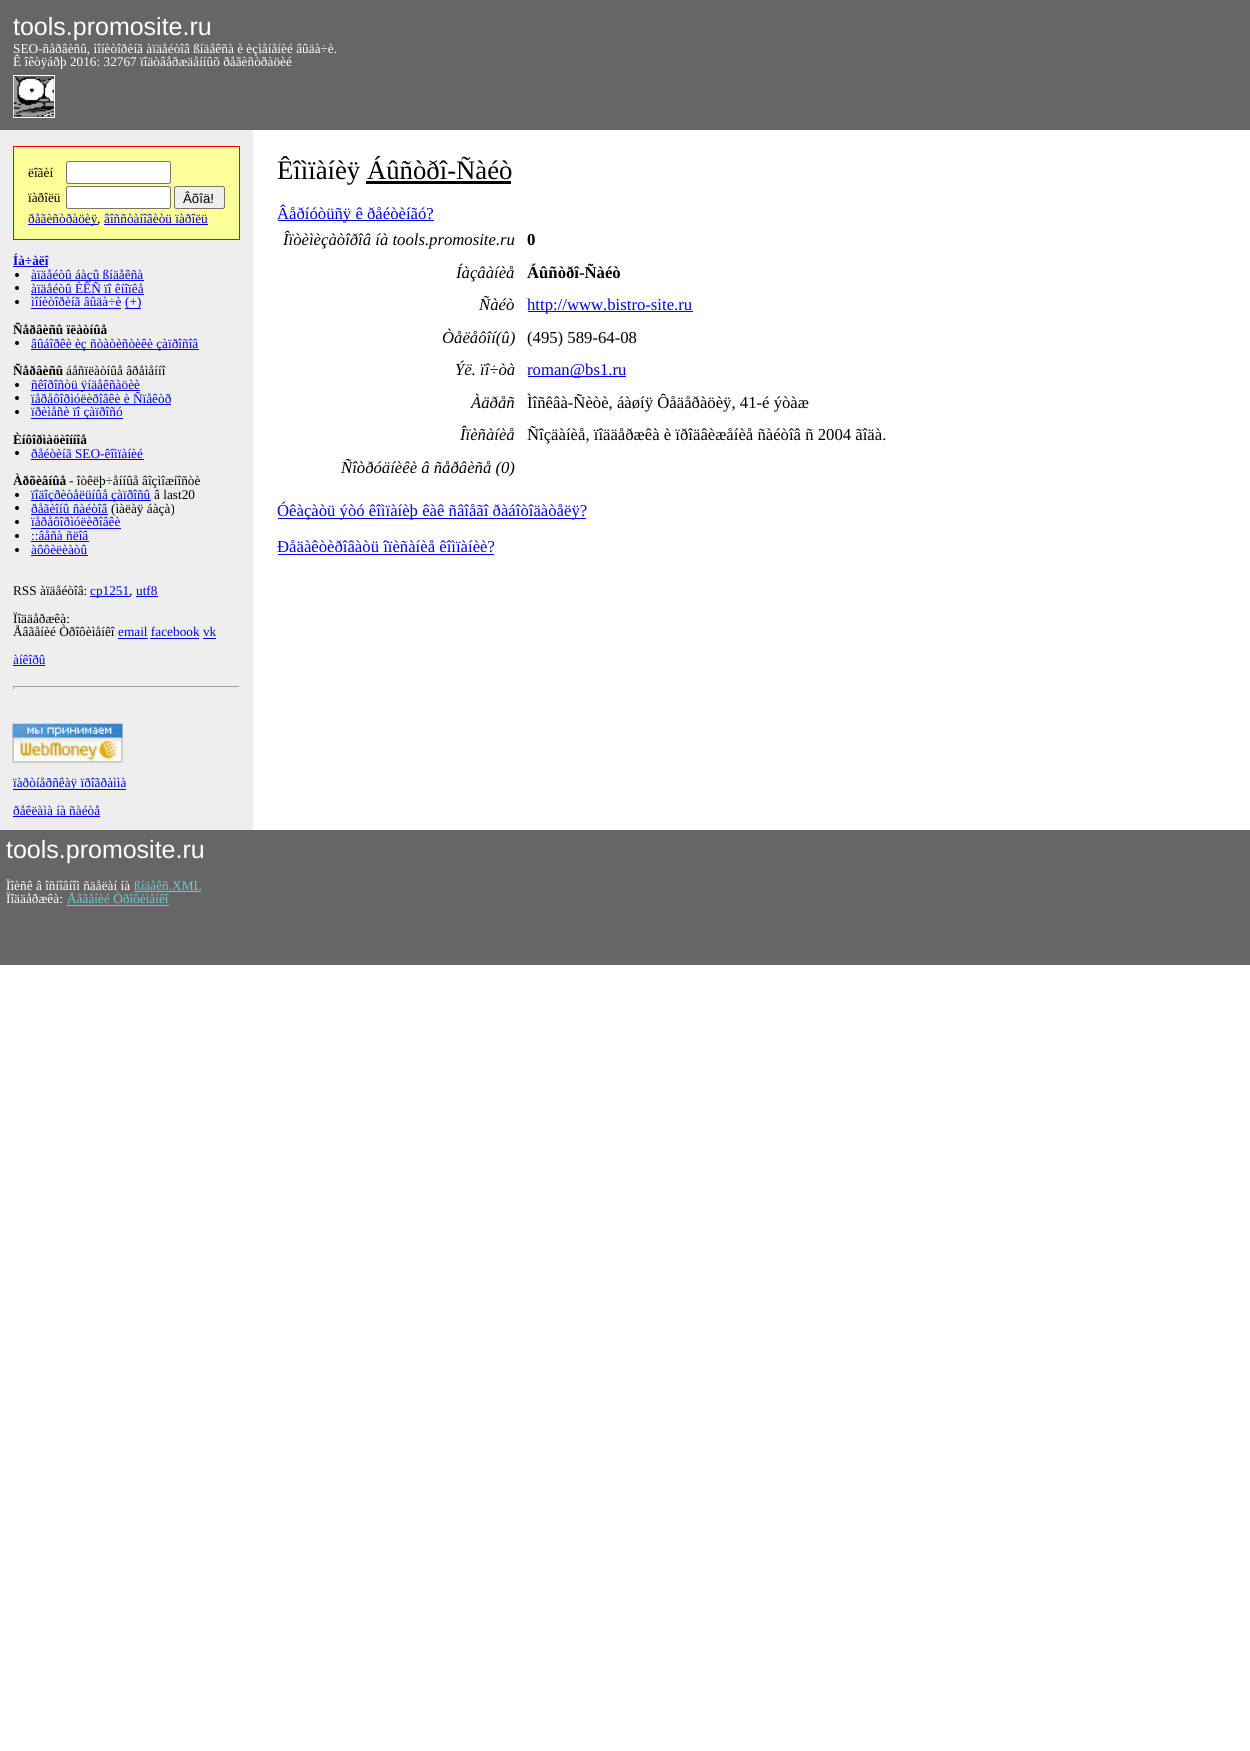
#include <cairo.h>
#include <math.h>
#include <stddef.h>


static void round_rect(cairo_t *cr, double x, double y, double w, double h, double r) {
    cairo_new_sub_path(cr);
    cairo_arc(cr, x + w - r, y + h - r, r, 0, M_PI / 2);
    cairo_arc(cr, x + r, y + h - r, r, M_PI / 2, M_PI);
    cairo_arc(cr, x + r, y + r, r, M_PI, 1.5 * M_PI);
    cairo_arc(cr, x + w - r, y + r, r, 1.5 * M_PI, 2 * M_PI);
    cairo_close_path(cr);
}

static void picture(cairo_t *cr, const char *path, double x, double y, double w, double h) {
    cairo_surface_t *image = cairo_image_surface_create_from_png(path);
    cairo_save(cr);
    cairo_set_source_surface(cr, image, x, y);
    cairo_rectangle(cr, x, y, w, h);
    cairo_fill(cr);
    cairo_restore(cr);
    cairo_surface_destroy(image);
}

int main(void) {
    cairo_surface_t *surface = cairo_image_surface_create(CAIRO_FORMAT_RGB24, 1250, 1751);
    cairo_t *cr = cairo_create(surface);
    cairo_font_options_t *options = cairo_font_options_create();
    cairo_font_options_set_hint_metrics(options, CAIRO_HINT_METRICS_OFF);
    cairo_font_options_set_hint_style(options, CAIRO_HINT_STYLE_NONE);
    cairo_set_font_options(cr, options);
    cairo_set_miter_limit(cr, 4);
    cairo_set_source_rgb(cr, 1, 1, 1);
    cairo_paint(cr);
    cairo_set_source_rgb(cr, 0.4, 0.4, 0.4);
    cairo_rectangle(cr, 0, 0, 1250, 130);
    cairo_fill(cr);
    cairo_select_font_face(cr, "Liberation Sans", CAIRO_FONT_SLANT_NORMAL, CAIRO_FONT_WEIGHT_NORMAL);
    cairo_set_font_size(cr, 25);
    cairo_set_source_rgb(cr, 1, 1, 1);
    cairo_move_to(cr, 13, 35);
    cairo_show_text(cr, "tools.promosite.ru");
    cairo_select_font_face(cr, "Liberation Serif", CAIRO_FONT_SLANT_NORMAL, CAIRO_FONT_WEIGHT_NORMAL);
    cairo_set_font_size(cr, 13.3);
    cairo_move_to(cr, 13, 53);
    cairo_show_text(cr, "SEO-ñåðâèñû, ìîíèòîðèíã àïäåéòîâ ßíäåêñà è èçìåíåíèé âûäà÷è.");
    cairo_move_to(cr, 13, 66);
    cairo_show_text(cr, "Ê îêòÿáðþ 2016: 32767 ïîäòâåðæäåííûõ ðåãèñòðàöèé");
    cairo_rectangle(cr, 13.5, 75.5, 41, 42);
    cairo_set_line_width(cr, 1);
    cairo_stroke(cr);
    picture(cr, "img1.png", 13, 76, 41, 41);
    cairo_set_source_rgb(cr, 0.933, 0.933, 0.933);
    cairo_rectangle(cr, 0, 130, 253, 700);
    cairo_fill(cr);
    cairo_set_source_rgb(cr, 1, 1, 0.6);
    cairo_rectangle(cr, 13.5, 146.5, 226, 93);
    cairo_fill_preserve(cr);
    cairo_set_source_rgb(cr, 1, 0, 0);
    cairo_stroke(cr);
    cairo_set_source_rgb(cr, 0, 0, 0);
    cairo_move_to(cr, 28, 177);
    cairo_show_text(cr, "ëîãèí");
    cairo_set_source_rgb(cr, 1, 1, 1);
    round_rect(cr, 66.5, 161.5, 104, 22, 2);
    cairo_fill_preserve(cr);
    cairo_set_source_rgb(cr, 0.463, 0.463, 0.463);
    cairo_stroke(cr);
    cairo_set_source_rgb(cr, 0, 0, 0);
    cairo_move_to(cr, 28, 202);
    cairo_show_text(cr, "ïàðîëü");
    cairo_set_source_rgb(cr, 1, 1, 1);
    round_rect(cr, 66.5, 186.5, 104, 22, 2);
    cairo_fill_preserve(cr);
    cairo_set_source_rgb(cr, 0.463, 0.463, 0.463);
    cairo_stroke(cr);
    cairo_set_source_rgb(cr, 0.937, 0.937, 0.937);
    round_rect(cr, 174.5, 186.5, 50, 22, 2);
    cairo_fill_preserve(cr);
    cairo_set_source_rgb(cr, 0.463, 0.463, 0.463);
    cairo_stroke(cr);
    cairo_select_font_face(cr, "Liberation Sans", CAIRO_FONT_SLANT_NORMAL, CAIRO_FONT_WEIGHT_NORMAL);
    cairo_set_source_rgb(cr, 0, 0, 0);
    cairo_move_to(cr, 183, 203);
    cairo_show_text(cr, "Âõîä!");
    cairo_set_source_rgb(cr, 0, 0, 0.933);
    cairo_rectangle(cr, 28, 224, 70, 1);
    cairo_fill(cr);
    cairo_select_font_face(cr, "Liberation Serif", CAIRO_FONT_SLANT_NORMAL, CAIRO_FONT_WEIGHT_NORMAL);
    cairo_move_to(cr, 28, 223);
    cairo_show_text(cr, "ðåãèñòðàöèÿ");
    cairo_set_source_rgb(cr, 0, 0, 0);
    cairo_move_to(cr, 97, 223);
    cairo_show_text(cr, ",");
    cairo_set_source_rgb(cr, 0, 0, 0.933);
    cairo_move_to(cr, 104, 223);
    cairo_show_text(cr, "âîññòàíîâèòü ïàðîëü");
    cairo_rectangle(cr, 104, 224, 104, 1);
    cairo_fill(cr);
    cairo_select_font_face(cr, "Liberation Serif", CAIRO_FONT_SLANT_NORMAL, CAIRO_FONT_WEIGHT_BOLD);
    cairo_move_to(cr, 13, 265);
    cairo_show_text(cr, "Íà÷àëî");
    cairo_rectangle(cr, 13, 266, 35, 1);
    cairo_fill(cr);
    cairo_set_source_rgb(cr, 0, 0, 0);
    cairo_arc(cr, 17, 275, 2, 0, 2 * M_PI);
    cairo_fill(cr);
    cairo_set_source_rgb(cr, 0, 0, 0.933);
    cairo_rectangle(cr, 31, 280, 113, 1);
    cairo_fill(cr);
    cairo_select_font_face(cr, "Liberation Serif", CAIRO_FONT_SLANT_NORMAL, CAIRO_FONT_WEIGHT_NORMAL);
    cairo_move_to(cr, 31, 279);
    cairo_show_text(cr, "àïäåéòû áàçû ßíäåêñà");
    cairo_set_source_rgb(cr, 0, 0, 0);
    cairo_new_path(cr);
    cairo_arc(cr, 17, 288, 2, 0, 2 * M_PI);
    cairo_fill(cr);
    cairo_set_source_rgb(cr, 0, 0, 0.933);
    cairo_move_to(cr, 31, 293);
    cairo_show_text(cr, "àïäåéòû ÈÊÑ ïî êíîïêå");
    cairo_rectangle(cr, 31, 294, 113, 1);
    cairo_fill(cr);
    cairo_set_source_rgb(cr, 0, 0, 0);
    cairo_arc(cr, 17, 302, 2, 0, 2 * M_PI);
    cairo_fill(cr);
    cairo_set_source_rgb(cr, 0, 0, 0.933);
    cairo_move_to(cr, 31, 306);
    cairo_show_text(cr, "ìîíèòîðèíã âûäà÷è");
    cairo_rectangle(cr, 31, 308, 90, 1);
    cairo_fill(cr);
    cairo_rectangle(cr, 125, 308, 16, 1);
    cairo_fill(cr);
    cairo_move_to(cr, 125, 306);
    cairo_show_text(cr, "(+)");
    cairo_select_font_face(cr, "Liberation Serif", CAIRO_FONT_SLANT_NORMAL, CAIRO_FONT_WEIGHT_BOLD);
    cairo_set_source_rgb(cr, 0, 0, 0);
    cairo_move_to(cr, 13, 334);
    cairo_show_text(cr, "Ñåðâèñû ïëàòíûå");
    cairo_new_path(cr);
    cairo_arc(cr, 17, 343, 2, 0, 2 * M_PI);
    cairo_fill(cr);
    cairo_set_source_rgb(cr, 0, 0, 0.933);
    cairo_rectangle(cr, 31, 349, 168, 1);
    cairo_fill(cr);
    cairo_select_font_face(cr, "Liberation Serif", CAIRO_FONT_SLANT_NORMAL, CAIRO_FONT_WEIGHT_NORMAL);
    cairo_move_to(cr, 31, 348);
    cairo_show_text(cr, "âûáîðêè èç ñòàòèñòèêè çàïðîñîâ");
    cairo_select_font_face(cr, "Liberation Serif", CAIRO_FONT_SLANT_NORMAL, CAIRO_FONT_WEIGHT_BOLD);
    cairo_set_source_rgb(cr, 0, 0, 0);
    cairo_move_to(cr, 13, 375);
    cairo_show_text(cr, "Ñåðâèñû");
    cairo_select_font_face(cr, "Liberation Serif", CAIRO_FONT_SLANT_NORMAL, CAIRO_FONT_WEIGHT_NORMAL);
    cairo_move_to(cr, 66, 375);
    cairo_show_text(cr, "áåñïëàòíûå âðåìåííî");
    cairo_new_path(cr);
    cairo_arc(cr, 17, 385, 2, 0, 2 * M_PI);
    cairo_fill(cr);
    cairo_set_source_rgb(cr, 0, 0, 0.933);
    cairo_rectangle(cr, 31, 390, 109, 1);
    cairo_fill(cr);
    cairo_move_to(cr, 31, 389);
    cairo_show_text(cr, "ñêîðîñòü ÿíäåêñàöèè");
    cairo_set_source_rgb(cr, 0, 0, 0);
    cairo_new_path(cr);
    cairo_arc(cr, 17, 398, 2, 0, 2 * M_PI);
    cairo_fill(cr);
    cairo_set_source_rgb(cr, 0, 0, 0.933);
    cairo_move_to(cr, 31, 403);
    cairo_show_text(cr, "ïåðåôîðìóëèðîâêè è Ñïåêòð");
    cairo_rectangle(cr, 31, 404, 140, 1);
    cairo_fill(cr);
    cairo_set_source_rgb(cr, 0, 0, 0);
    cairo_arc(cr, 17, 412, 2, 0, 2 * M_PI);
    cairo_fill(cr);
    cairo_set_source_rgb(cr, 0, 0, 0.933);
    cairo_rectangle(cr, 31, 418, 92, 1);
    cairo_fill(cr);
    cairo_move_to(cr, 31, 416);
    cairo_show_text(cr, "ïðèìåñè ïî çàïðîñó");
    cairo_select_font_face(cr, "Liberation Serif", CAIRO_FONT_SLANT_NORMAL, CAIRO_FONT_WEIGHT_BOLD);
    cairo_set_source_rgb(cr, 0, 0, 0);
    cairo_move_to(cr, 13, 444);
    cairo_show_text(cr, "Èíôîðìàöèîííîå");
    cairo_new_path(cr);
    cairo_arc(cr, 17, 453, 2, 0, 2 * M_PI);
    cairo_fill(cr);
    cairo_select_font_face(cr, "Liberation Serif", CAIRO_FONT_SLANT_NORMAL, CAIRO_FONT_WEIGHT_NORMAL);
    cairo_set_source_rgb(cr, 0, 0, 0.933);
    cairo_move_to(cr, 31, 458);
    cairo_show_text(cr, "ðåéòèíã SEO-êîìïàíèé");
    cairo_rectangle(cr, 31, 459, 113, 1);
    cairo_fill(cr);
    cairo_select_font_face(cr, "Liberation Serif", CAIRO_FONT_SLANT_NORMAL, CAIRO_FONT_WEIGHT_BOLD);
    cairo_set_source_rgb(cr, 0, 0, 0);
    cairo_move_to(cr, 13, 485);
    cairo_show_text(cr, "Àðõèâíûå");
    cairo_select_font_face(cr, "Liberation Serif", CAIRO_FONT_SLANT_NORMAL, CAIRO_FONT_WEIGHT_NORMAL);
    cairo_move_to(cr, 69, 485);
    cairo_show_text(cr, "- îòêëþ÷åííûå âîçìîæíîñòè");
    cairo_new_path(cr);
    cairo_arc(cr, 17, 495, 2, 0, 2 * M_PI);
    cairo_fill(cr);
    cairo_set_source_rgb(cr, 0, 0, 0.933);
    cairo_rectangle(cr, 31, 500, 120, 1);
    cairo_fill(cr);
    cairo_move_to(cr, 31, 499);
    cairo_show_text(cr, "ïîäîçðèòåëüíûå çàïðîñû");
    cairo_set_source_rgb(cr, 0, 0, 0);
    cairo_move_to(cr, 154, 499);
    cairo_show_text(cr, "â last20");
    cairo_new_path(cr);
    cairo_arc(cr, 17, 508, 2, 0, 2 * M_PI);
    cairo_fill(cr);
    cairo_set_source_rgb(cr, 0, 0, 0.933);
    cairo_move_to(cr, 31, 513);
    cairo_show_text(cr, "ðåãèîíû ñàéòîâ");
    cairo_rectangle(cr, 31, 514, 77, 1);
    cairo_fill(cr);
    cairo_set_source_rgb(cr, 0, 0, 0);
    cairo_move_to(cr, 111, 513);
    cairo_show_text(cr, "(ìàëàÿ áàçà)");
    cairo_new_path(cr);
    cairo_arc(cr, 17, 522, 2, 0, 2 * M_PI);
    cairo_fill(cr);
    cairo_set_source_rgb(cr, 0, 0, 0.933);
    cairo_move_to(cr, 31, 526);
    cairo_show_text(cr, "ïåðåôîðìóëèðîâêè");
    cairo_rectangle(cr, 31, 528, 90, 1);
    cairo_fill(cr);
    cairo_set_source_rgb(cr, 0, 0, 0);
    cairo_arc(cr, 17, 536, 2, 0, 2 * M_PI);
    cairo_fill(cr);
    cairo_set_source_rgb(cr, 0, 0, 0.933);
    cairo_move_to(cr, 31, 540);
    cairo_show_text(cr, "::âåñà ñëîâ");
    cairo_rectangle(cr, 31, 541, 58, 1);
    cairo_fill(cr);
    cairo_set_source_rgb(cr, 0, 0, 0);
    cairo_arc(cr, 17, 550, 2, 0, 2 * M_PI);
    cairo_fill(cr);
    cairo_set_source_rgb(cr, 0, 0, 0.933);
    cairo_move_to(cr, 31, 554);
    cairo_show_text(cr, "àôôèëèàòû");
    cairo_rectangle(cr, 31, 555, 57, 1);
    cairo_fill(cr);
    cairo_set_source_rgb(cr, 0, 0, 0);
    cairo_move_to(cr, 13, 595);
    cairo_show_text(cr, "RSS àïäåéòîâ:");
    cairo_set_source_rgb(cr, 0, 0, 0.933);
    cairo_rectangle(cr, 90, 596, 40, 1);
    cairo_fill(cr);
    cairo_move_to(cr, 90, 595);
    cairo_show_text(cr, "cp1251");
    cairo_set_source_rgb(cr, 0, 0, 0);
    cairo_move_to(cr, 129, 595);
    cairo_show_text(cr, ",");
    cairo_set_source_rgb(cr, 0, 0, 0.933);
    cairo_move_to(cr, 136, 595);
    cairo_show_text(cr, "utf8");
    cairo_rectangle(cr, 136, 596, 22, 1);
    cairo_fill(cr);
    cairo_set_source_rgb(cr, 0, 0, 0);
    cairo_move_to(cr, 13, 623);
    cairo_show_text(cr, "Ïîääåðæêà:");
    cairo_move_to(cr, 13, 636);
    cairo_show_text(cr, "Åâãåíèé Òðîôèìåíêî");
    cairo_set_source_rgb(cr, 0, 0, 0.933);
    cairo_move_to(cr, 118, 636);
    cairo_show_text(cr, "email facebook vk");
    cairo_rectangle(cr, 118, 638, 30, 1);
    cairo_fill(cr);
    cairo_rectangle(cr, 150, 638, 49, 1);
    cairo_fill(cr);
    cairo_rectangle(cr, 203, 638, 13, 1);
    cairo_fill(cr);
    cairo_move_to(cr, 13, 664);
    cairo_show_text(cr, "àíêîðû");
    cairo_rectangle(cr, 13, 665, 32, 1);
    cairo_fill(cr);
    cairo_set_source_rgb(cr, 0.624, 0.624, 0.624);
    cairo_rectangle(cr, 13, 686, 227, 1);
    cairo_fill(cr);
    cairo_set_source_rgb(cr, 0.933, 0.933, 0.933);
    cairo_rectangle(cr, 239, 686, 1, 3);
    cairo_fill(cr);
    cairo_set_source_rgb(cr, 0.624, 0.624, 0.624);
    cairo_rectangle(cr, 13, 686, 1, 3);
    cairo_fill(cr);
    picture(cr, "img2.png", 12, 723, 111, 40);
    cairo_set_source_rgb(cr, 0, 0, 0.933);
    cairo_rectangle(cr, 13, 789, 113, 1);
    cairo_fill(cr);
    cairo_move_to(cr, 13, 787);
    cairo_show_text(cr, "ïàðòíåðñêàÿ ïðîãðàììà");
    cairo_move_to(cr, 13, 815);
    cairo_show_text(cr, "ðåêëàìà íà ñàéòå");
    cairo_rectangle(cr, 13, 816, 87, 1);
    cairo_fill(cr);
    cairo_set_font_size(cr, 26.75);
    cairo_set_source_rgb(cr, 0, 0, 0);
    cairo_move_to(cr, 277, 179);
    cairo_show_text(cr, "Êîìïàíèÿ Áûñòðî-Ñàéò");
    cairo_rectangle(cr, 366, 181, 145, 3);
    cairo_fill(cr);
    cairo_set_source_rgb(cr, 0, 0, 0.933);
    cairo_rectangle(cr, 278, 220, 156, 1);
    cairo_fill(cr);
    cairo_set_font_size(cr, 16.7);
    cairo_move_to(cr, 277, 219);
    cairo_show_text(cr, "Âåðíóòüñÿ ê ðåéòèíãó?");
    cairo_select_font_face(cr, "Liberation Serif", CAIRO_FONT_SLANT_ITALIC, CAIRO_FONT_WEIGHT_NORMAL);
    cairo_set_source_rgb(cr, 0, 0, 0);
    cairo_move_to(cr, 283, 245);
    cairo_show_text(cr, "Îïòèìèçàòîðîâ íà tools.promosite.ru");
    cairo_select_font_face(cr, "Liberation Serif", CAIRO_FONT_SLANT_NORMAL, CAIRO_FONT_WEIGHT_BOLD);
    cairo_move_to(cr, 527, 245);
    cairo_show_text(cr, "0");
    cairo_select_font_face(cr, "Liberation Serif", CAIRO_FONT_SLANT_ITALIC, CAIRO_FONT_WEIGHT_NORMAL);
    cairo_move_to(cr, 456, 278);
    cairo_show_text(cr, "Íàçâàíèå");
    cairo_select_font_face(cr, "Liberation Serif", CAIRO_FONT_SLANT_NORMAL, CAIRO_FONT_WEIGHT_BOLD);
    cairo_move_to(cr, 527, 278);
    cairo_show_text(cr, "Áûñòðî-Ñàéò");
    cairo_select_font_face(cr, "Liberation Serif", CAIRO_FONT_SLANT_ITALIC, CAIRO_FONT_WEIGHT_NORMAL);
    cairo_move_to(cr, 479, 310);
    cairo_show_text(cr, "Ñàéò");
    cairo_set_source_rgb(cr, 0, 0, 0.933);
    cairo_rectangle(cr, 528, 311, 165, 1);
    cairo_fill(cr);
    cairo_select_font_face(cr, "Liberation Serif", CAIRO_FONT_SLANT_NORMAL, CAIRO_FONT_WEIGHT_NORMAL);
    cairo_move_to(cr, 527, 310);
    cairo_show_text(cr, "http://www.bistro-site.ru");
    cairo_select_font_face(cr, "Liberation Serif", CAIRO_FONT_SLANT_ITALIC, CAIRO_FONT_WEIGHT_NORMAL);
    cairo_set_source_rgb(cr, 0, 0, 0);
    cairo_move_to(cr, 442, 343);
    cairo_show_text(cr, "Òåëåôîí(û)");
    cairo_select_font_face(cr, "Liberation Serif", CAIRO_FONT_SLANT_NORMAL, CAIRO_FONT_WEIGHT_NORMAL);
    cairo_move_to(cr, 527, 343);
    cairo_show_text(cr, "(495) 589-64-08");
    cairo_select_font_face(cr, "Liberation Serif", CAIRO_FONT_SLANT_ITALIC, CAIRO_FONT_WEIGHT_NORMAL);
    cairo_move_to(cr, 455, 375);
    cairo_show_text(cr, "Ýë. ïî÷òà");
    cairo_set_source_rgb(cr, 0, 0, 0.933);
    cairo_rectangle(cr, 528, 376, 98, 1);
    cairo_fill(cr);
    cairo_select_font_face(cr, "Liberation Serif", CAIRO_FONT_SLANT_NORMAL, CAIRO_FONT_WEIGHT_NORMAL);
    cairo_move_to(cr, 527, 375);
    cairo_show_text(cr, "roman@bs1.ru");
    cairo_select_font_face(cr, "Liberation Serif", CAIRO_FONT_SLANT_ITALIC, CAIRO_FONT_WEIGHT_NORMAL);
    cairo_set_source_rgb(cr, 0, 0, 0);
    cairo_move_to(cr, 471, 408);
    cairo_show_text(cr, "Àäðåñ");
    cairo_select_font_face(cr, "Liberation Serif", CAIRO_FONT_SLANT_NORMAL, CAIRO_FONT_WEIGHT_NORMAL);
    cairo_move_to(cr, 527, 408);
    cairo_show_text(cr, "Ìîñêâà-Ñèòè, áàøíÿ Ôåäåðàöèÿ, 41-é ýòàæ");
    cairo_select_font_face(cr, "Liberation Serif", CAIRO_FONT_SLANT_ITALIC, CAIRO_FONT_WEIGHT_NORMAL);
    cairo_move_to(cr, 460, 440);
    cairo_show_text(cr, "Îïèñàíèå");
    cairo_select_font_face(cr, "Liberation Serif", CAIRO_FONT_SLANT_NORMAL, CAIRO_FONT_WEIGHT_NORMAL);
    cairo_move_to(cr, 527, 440);
    cairo_show_text(cr, "Ñîçäàíèå, ïîääåðæêà è ïðîäâèæåíèå ñàéòîâ ñ 2004 ãîäà.");
    cairo_select_font_face(cr, "Liberation Serif", CAIRO_FONT_SLANT_ITALIC, CAIRO_FONT_WEIGHT_NORMAL);
    cairo_move_to(cr, 341, 473);
    cairo_show_text(cr, "Ñîòðóäíèêè â ñåðâèñå (0)");
    cairo_set_source_rgb(cr, 0, 0, 0.933);
    cairo_rectangle(cr, 278, 518, 308, 1);
    cairo_fill(cr);
    cairo_select_font_face(cr, "Liberation Serif", CAIRO_FONT_SLANT_NORMAL, CAIRO_FONT_WEIGHT_NORMAL);
    cairo_move_to(cr, 277, 516);
    cairo_show_text(cr, "Óêàçàòü ýòó êîìïàíèþ êàê ñâîåãî ðàáîòîäàòåëÿ?");
    cairo_move_to(cr, 277, 552);
    cairo_show_text(cr, "Ðåäàêòèðîâàòü îïèñàíèå êîìïàíèè?");
    cairo_rectangle(cr, 278, 554, 216, 1);
    cairo_fill(cr);
    cairo_set_source_rgb(cr, 0.4, 0.4, 0.4);
    cairo_rectangle(cr, 0, 830, 1250, 135);
    cairo_fill(cr);
    cairo_select_font_face(cr, "Liberation Sans", CAIRO_FONT_SLANT_NORMAL, CAIRO_FONT_WEIGHT_NORMAL);
    cairo_set_font_size(cr, 25);
    cairo_set_source_rgb(cr, 1, 1, 1);
    cairo_move_to(cr, 6, 858);
    cairo_show_text(cr, "tools.promosite.ru");
    cairo_select_font_face(cr, "Liberation Serif", CAIRO_FONT_SLANT_NORMAL, CAIRO_FONT_WEIGHT_NORMAL);
    cairo_set_font_size(cr, 13.3);
    cairo_move_to(cr, 6, 890);
    cairo_show_text(cr, "Ïîèñê â îñíîâíîì ñäåëàí íà");
    cairo_set_source_rgb(cr, 0.4, 0.8, 0.8);
    cairo_move_to(cr, 134, 890);
    cairo_show_text(cr, "ßíäåêñ.XML");
    cairo_rectangle(cr, 134, 891, 67, 1);
    cairo_fill(cr);
    cairo_set_source_rgb(cr, 1, 1, 1);
    cairo_move_to(cr, 6, 903);
    cairo_show_text(cr, "Ïîääåðæêà:");
    cairo_set_source_rgb(cr, 0.4, 0.8, 0.8);
    cairo_move_to(cr, 67, 903);
    cairo_show_text(cr, "Åâãåíèé Òðîôèìåíêî");
    cairo_rectangle(cr, 66, 905, 103, 1);
    cairo_fill(cr);
    cairo_surface_write_to_png(surface, "page.png");
    cairo_font_options_destroy(options);
    cairo_destroy(cr);
    cairo_surface_destroy(surface);
    return 0;
}
